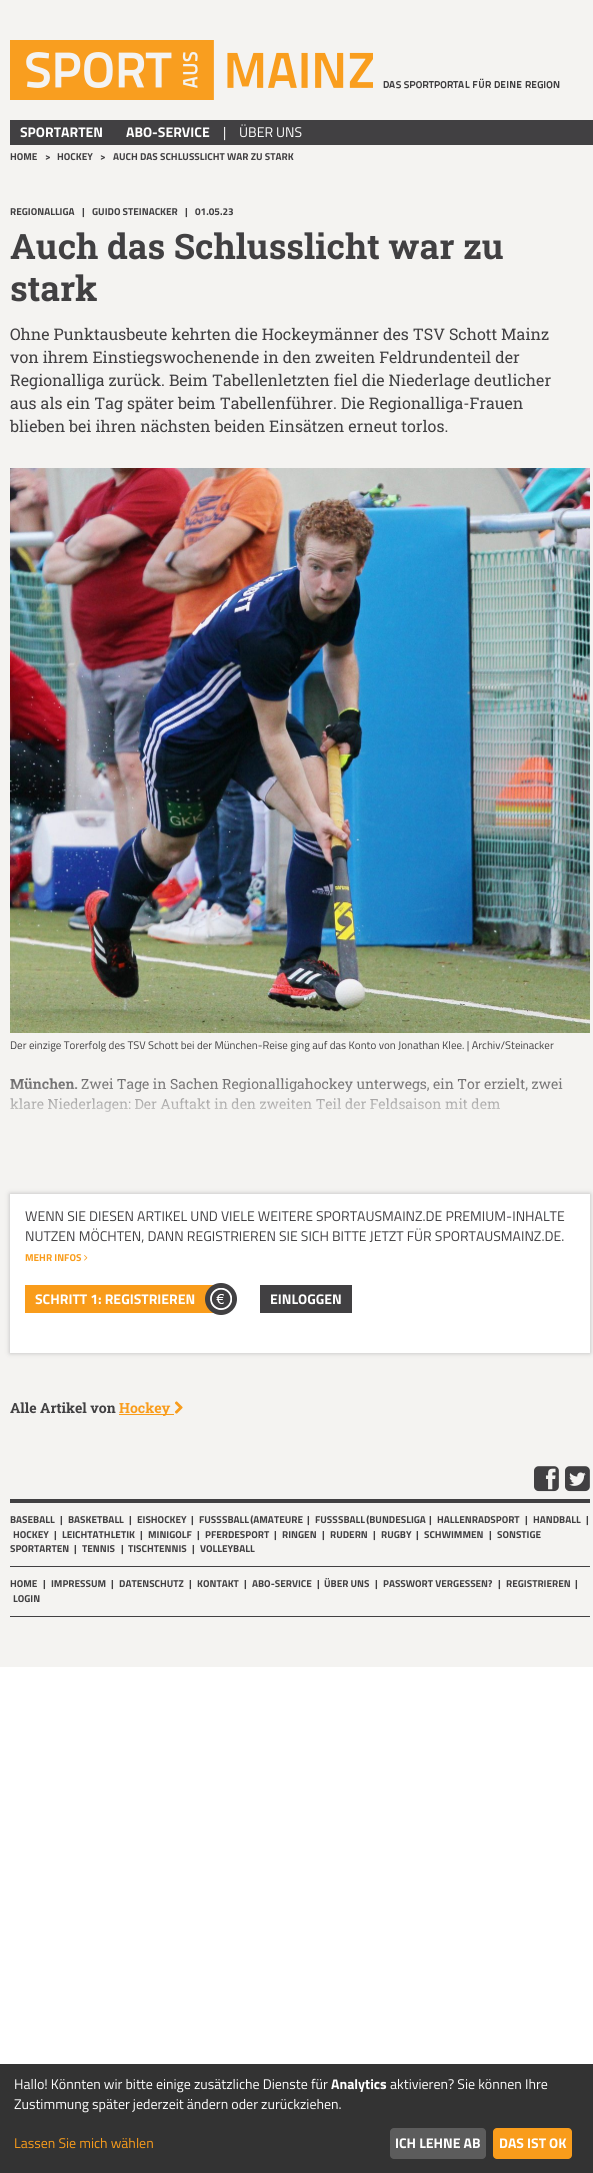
#include <cairo.h>
#include <math.h>
#include <stddef.h>


static void spaced_text(cairo_t *cr, double x, double y, const char *s, double letter, double word) {
    cairo_move_to(cr, x, y);
    while (*s) {
        char ch[5] = {0};
        int n = 0;
        do ch[n++] = *s++; while ((*s & 0xC0) == 0x80);
        cairo_show_text(cr, ch);
        cairo_rel_move_to(cr, letter + word * (*ch == ' '), 0);
    }
}

static void round_rect(cairo_t *cr, double x, double y, double w, double h, double r) {
    cairo_new_sub_path(cr);
    cairo_arc(cr, x + w - r, y + h - r, r, 0, M_PI / 2);
    cairo_arc(cr, x + r, y + h - r, r, M_PI / 2, M_PI);
    cairo_arc(cr, x + r, y + r, r, M_PI, 1.5 * M_PI);
    cairo_arc(cr, x + w - r, y + r, r, 1.5 * M_PI, 2 * M_PI);
    cairo_close_path(cr);
}

static void shadow(cairo_t *cr, double x, double y, double w, double h, double r, double blur, double alpha) {
    cairo_push_group_with_content(cr, CAIRO_CONTENT_ALPHA);
    cairo_set_operator(cr, CAIRO_OPERATOR_SOURCE);
    for (int i = 15; i >= -15 && fmin(w, h) + blur * i / 3 > 0; i -= 2) {
        double e = blur * i / 6;
        cairo_set_source_rgba(cr, 0, 0, 0, alpha * erfc((i - 1) / 8.5) / 2);
        round_rect(cr, x - e, y - e, w + 2 * e, h + 2 * e, fmax(0, fmin(r + e + blur * .6, fmin(w, h) / 2 + e)));
        cairo_fill(cr);
    }
    cairo_pattern_t *soft = cairo_pop_group(cr);
    cairo_mask(cr, soft);
    cairo_pattern_destroy(soft);
}

static void picture(cairo_t *cr, const char *path, double x, double y, double w, double h) {
    cairo_surface_t *image = cairo_image_surface_create_from_png(path);
    cairo_save(cr);
    cairo_set_source_surface(cr, image, x, y);
    cairo_rectangle(cr, x, y, w, h);
    cairo_fill(cr);
    cairo_restore(cr);
    cairo_surface_destroy(image);
}

int main(void) {
    cairo_surface_t *surface = cairo_image_surface_create(CAIRO_FORMAT_RGB24, 593, 2173);
    cairo_t *cr = cairo_create(surface);
    cairo_font_options_t *options = cairo_font_options_create();
    cairo_font_options_set_hint_metrics(options, CAIRO_HINT_METRICS_OFF);
    cairo_font_options_set_hint_style(options, CAIRO_HINT_STYLE_NONE);
    cairo_set_font_options(cr, options);
    cairo_set_miter_limit(cr, 4);
    cairo_set_source_rgb(cr, 1, 1, 1);
    cairo_paint(cr);
    cairo_set_source_rgb(cr, 0.957, 0.953, 0.945);
    cairo_rectangle(cr, 0, 0, 593, 1667);
    cairo_fill(cr);
    picture(cr, "img1.png", 10, 40, 550, 60);
    cairo_set_source_rgb(cr, 0.255, 0.251, 0.259);
    cairo_rectangle(cr, 10, 120, 583, 25);
    cairo_fill(cr);
    cairo_select_font_face(cr, "Titillium Web", CAIRO_FONT_SLANT_NORMAL, CAIRO_FONT_WEIGHT_BOLD);
    cairo_set_font_size(cr, 14);
    cairo_set_source_rgb(cr, 1, 1, 1);
    cairo_move_to(cr, 20, 137);
    cairo_show_text(cr, "SPORTARTEN");
    cairo_move_to(cr, 126, 137);
    cairo_show_text(cr, "ABO-SERVICE");
    cairo_select_font_face(cr, "Titillium Web", CAIRO_FONT_SLANT_NORMAL, CAIRO_FONT_WEIGHT_NORMAL);
    cairo_move_to(cr, 223, 137);
    cairo_show_text(cr, "|");
    cairo_move_to(cr, 239, 137);
    cairo_show_text(cr, "ÜBER UNS");
    cairo_select_font_face(cr, "Titillium Web", CAIRO_FONT_SLANT_NORMAL, CAIRO_FONT_WEIGHT_BOLD);
    cairo_set_font_size(cr, 10);
    cairo_set_source_rgb(cr, 0.255, 0.251, 0.259);
    cairo_move_to(cr, 10, 160);
    cairo_show_text(cr, "HOME");
    cairo_move_to(cr, 45, 160);
    cairo_show_text(cr, ">");
    cairo_move_to(cr, 57, 160);
    cairo_show_text(cr, "HOCKEY");
    cairo_move_to(cr, 100, 160);
    cairo_show_text(cr, ">");
    cairo_move_to(cr, 113, 160);
    cairo_show_text(cr, "AUCH DAS SCHLUSSLICHT WAR ZU STARK");
    cairo_move_to(cr, 10, 215);
    cairo_show_text(cr, "REGIONALLIGA");
    cairo_move_to(cr, 82, 215);
    cairo_show_text(cr, "|");
    cairo_move_to(cr, 92, 215);
    cairo_show_text(cr, "GUIDO STEINACKER");
    cairo_move_to(cr, 185, 215);
    cairo_show_text(cr, "|");
    cairo_move_to(cr, 195, 215);
    cairo_show_text(cr, "01.05.23");
    cairo_select_font_face(cr, "Roboto Slab", CAIRO_FONT_SLANT_NORMAL, CAIRO_FONT_WEIGHT_BOLD);
    cairo_set_font_size(cr, 35);
    cairo_move_to(cr, 10, 259);
    cairo_show_text(cr, "Auch das Schlusslicht war zu");
    cairo_move_to(cr, 10, 301);
    cairo_show_text(cr, "stark");
    cairo_select_font_face(cr, "Roboto Slab", CAIRO_FONT_SLANT_NORMAL, CAIRO_FONT_WEIGHT_NORMAL);
    cairo_set_font_size(cr, 16);
    cairo_move_to(cr, 10, 340);
    cairo_show_text(cr, "Ohne Punktausbeute kehrten die Hockeymänner des TSV Schott Mainz");
    cairo_move_to(cr, 10, 363);
    cairo_show_text(cr, "von ihrem Einstiegswochenende in den zweiten Feldrundenteil der");
    cairo_move_to(cr, 10, 386);
    cairo_show_text(cr, "Regionalliga zurück. Beim Tabellenletzten fiel die Niederlage deutlicher");
    cairo_move_to(cr, 10, 409);
    cairo_show_text(cr, "aus als ein Tag später beim Tabellenführer. Die Regionalliga-Frauen");
    cairo_move_to(cr, 10, 432);
    cairo_show_text(cr, "blieben bei ihren nächsten beiden Einsätzen erneut torlos.");
    picture(cr, "img2.png", 10, 468, 580, 565);
    cairo_select_font_face(cr, "Titillium Web", CAIRO_FONT_SLANT_NORMAL, CAIRO_FONT_WEIGHT_NORMAL);
    cairo_set_font_size(cr, 11);
    cairo_move_to(cr, 10, 1049);
    cairo_show_text(cr, "Der einzige Torerfolg des TSV Schott bei der München-Reise ging auf das Konto von Jonathan Klee. | Archiv/Steinacker");
    cairo_select_font_face(cr, "Roboto Slab", CAIRO_FONT_SLANT_NORMAL, CAIRO_FONT_WEIGHT_BOLD);
    cairo_set_font_size(cr, 14);
    cairo_move_to(cr, 10, 1089);
    cairo_show_text(cr, "München.");
    cairo_select_font_face(cr, "Roboto Slab", CAIRO_FONT_SLANT_NORMAL, CAIRO_FONT_WEIGHT_NORMAL);
    cairo_move_to(cr, 81, 1089);
    cairo_show_text(cr, "Zwei Tage in Sachen Regionalligahockey unterwegs, ein Tor erzielt, zwei");
    cairo_move_to(cr, 10, 1109);
    cairo_show_text(cr, "klare Niederlagen: Der Auftakt in den zweiten Teil der Feldsaison mit dem");
    picture(cr, "img3.png", 10, 1078, 553, 54);
    cairo_set_source_rgb(cr, 0.733, 0.733, 0.733);
    shadow(cr, 10, 1194, 580, 159, 0, 2.5, 1);
    cairo_set_source_rgb(cr, 1, 1, 1);
    cairo_rectangle(cr, 10, 1194, 580, 159);
    cairo_fill(cr);
    cairo_select_font_face(cr, "Titillium Web", CAIRO_FONT_SLANT_NORMAL, CAIRO_FONT_WEIGHT_NORMAL);
    cairo_set_source_rgb(cr, 0.255, 0.251, 0.259);
    cairo_move_to(cr, 25, 1221);
    cairo_show_text(cr, "WENN SIE DIESEN ARTIKEL UND VIELE WEITERE SPORTAUSMAINZ.DE PREMIUM-INHALTE");
    cairo_move_to(cr, 25, 1241);
    cairo_show_text(cr, "NUTZEN MÖCHTEN, DANN REGISTRIEREN SIE SICH BITTE JETZT FÜR SPORTAUSMAINZ.DE.");
    cairo_select_font_face(cr, "Titillium Web", CAIRO_FONT_SLANT_NORMAL, CAIRO_FONT_WEIGHT_BOLD);
    cairo_set_font_size(cr, 10);
    cairo_set_source_rgb(cr, 0.973, 0.612, 0.106);
    cairo_move_to(cr, 25, 1261);
    cairo_show_text(cr, "MEHR INFOS");
    picture(cr, "img4.png", 84, 1255, 4, 6);
    cairo_rectangle(cr, 25, 1285, 189, 28);
    cairo_fill(cr);
    cairo_set_font_size(cr, 14);
    cairo_set_source_rgb(cr, 1, 1, 1);
    cairo_move_to(cr, 35, 1304);
    cairo_show_text(cr, "SCHRITT 1: REGISTRIEREN");
    cairo_set_source_rgb(cr, 0.255, 0.251, 0.259);
    cairo_new_path(cr);
    cairo_arc(cr, 221, 1299, 16, 0, 2 * M_PI);
    cairo_fill(cr);
    picture(cr, "img5.png", 210, 1288, 22, 22);
    cairo_rectangle(cr, 260, 1285, 92, 28);
    cairo_fill(cr);
    cairo_set_source_rgb(cr, 1, 1, 1);
    cairo_move_to(cr, 270, 1304);
    cairo_show_text(cr, "EINLOGGEN");
    cairo_select_font_face(cr, "Roboto Slab", CAIRO_FONT_SLANT_NORMAL, CAIRO_FONT_WEIGHT_BOLD);
    cairo_set_source_rgb(cr, 0.255, 0.251, 0.259);
    cairo_move_to(cr, 10, 1413);
    cairo_show_text(cr, "Alle Artikel von");
    cairo_set_source_rgb(cr, 0.973, 0.612, 0.106);
    cairo_rectangle(cr, 119, 1414, 55, 1);
    cairo_fill(cr);
    cairo_move_to(cr, 119, 1413);
    cairo_show_text(cr, "Hockey");
    picture(cr, "img6.png", 175, 1401, 8, 13);
    cairo_set_source_rgb(cr, 0.255, 0.251, 0.259);
    cairo_rectangle(cr, 10, 1499, 580, 4);
    cairo_fill(cr);
    picture(cr, "img7.png", 534, 1466, 25, 26);
    picture(cr, "img8.png", 565, 1466, 25, 26);
    cairo_rectangle(cr, 10, 1566, 580, 1);
    cairo_fill(cr);
    cairo_select_font_face(cr, "Titillium Web", CAIRO_FONT_SLANT_NORMAL, CAIRO_FONT_WEIGHT_BOLD);
    cairo_set_font_size(cr, 10);
    cairo_move_to(cr, 10, 1523);
    cairo_show_text(cr, "BASEBALL");
    cairo_move_to(cr, 60, 1523);
    cairo_show_text(cr, "|");
    cairo_move_to(cr, 68, 1523);
    cairo_show_text(cr, "BASKETBALL");
    cairo_move_to(cr, 129, 1523);
    cairo_show_text(cr, "|");
    cairo_move_to(cr, 137, 1523);
    cairo_show_text(cr, "EISHOCKEY");
    cairo_move_to(cr, 191, 1523);
    cairo_show_text(cr, "|");
    cairo_move_to(cr, 199, 1523);
    cairo_show_text(cr, "FUSS");
    spaced_text(cr, 222, 1523, "SBALL (AMATEURE", 0, -1);
    cairo_move_to(cr, 307, 1523);
    cairo_show_text(cr, "|");
    cairo_move_to(cr, 315, 1523);
    cairo_show_text(cr, "FUSS");
    spaced_text(cr, 338, 1523, "SBALL (BUNDESLIGA", 0, -1);
    cairo_move_to(cr, 429, 1523);
    cairo_show_text(cr, "|");
    cairo_move_to(cr, 437, 1523);
    cairo_show_text(cr, "HALLENRADSPORT");
    cairo_move_to(cr, 525, 1523);
    cairo_show_text(cr, "|");
    cairo_move_to(cr, 533, 1523);
    cairo_show_text(cr, "HANDBALL");
    cairo_move_to(cr, 586, 1523);
    cairo_show_text(cr, "|");
    cairo_move_to(cr, 13, 1538);
    cairo_show_text(cr, "HOCKEY");
    cairo_move_to(cr, 54, 1538);
    cairo_show_text(cr, "|");
    cairo_move_to(cr, 62, 1538);
    cairo_show_text(cr, "LEICHTATHLETIK");
    cairo_move_to(cr, 140, 1538);
    cairo_show_text(cr, "|");
    cairo_move_to(cr, 148, 1538);
    cairo_show_text(cr, "MINIGOLF");
    cairo_move_to(cr, 197, 1538);
    cairo_show_text(cr, "|");
    cairo_move_to(cr, 205, 1538);
    cairo_show_text(cr, "PFERDESPORT");
    cairo_move_to(cr, 274, 1538);
    cairo_show_text(cr, "|");
    cairo_move_to(cr, 282, 1538);
    cairo_show_text(cr, "RINGEN");
    cairo_move_to(cr, 322, 1538);
    cairo_show_text(cr, "|");
    cairo_move_to(cr, 330, 1538);
    cairo_show_text(cr, "RUDERN");
    cairo_move_to(cr, 373, 1538);
    cairo_show_text(cr, "|");
    cairo_move_to(cr, 381, 1538);
    cairo_show_text(cr, "RUGBY");
    cairo_move_to(cr, 416, 1538);
    cairo_show_text(cr, "|");
    cairo_move_to(cr, 424, 1538);
    cairo_show_text(cr, "SCHWIMMEN");
    cairo_move_to(cr, 489, 1538);
    cairo_show_text(cr, "|");
    cairo_move_to(cr, 497, 1538);
    cairo_show_text(cr, "SONSTIGE");
    cairo_move_to(cr, 10, 1552);
    cairo_show_text(cr, "SPORTARTEN");
    cairo_move_to(cr, 74, 1552);
    cairo_show_text(cr, "|");
    cairo_move_to(cr, 82, 1552);
    cairo_show_text(cr, "TENNIS");
    cairo_move_to(cr, 121, 1552);
    cairo_show_text(cr, "|");
    cairo_move_to(cr, 128, 1552);
    cairo_show_text(cr, "TISCHTENNIS");
    cairo_move_to(cr, 192, 1552);
    cairo_show_text(cr, "|");
    cairo_move_to(cr, 200, 1552);
    cairo_show_text(cr, "VOLLEYBALL");
    cairo_rectangle(cr, 10, 1616, 580, 1);
    cairo_fill(cr);
    cairo_move_to(cr, 10, 1587);
    cairo_show_text(cr, "HOME");
    cairo_move_to(cr, 43, 1587);
    cairo_show_text(cr, "|");
    cairo_move_to(cr, 51, 1587);
    cairo_show_text(cr, "IMPRESSUM");
    cairo_move_to(cr, 111, 1587);
    cairo_show_text(cr, "|");
    cairo_move_to(cr, 119, 1587);
    cairo_show_text(cr, "DATENSCHUTZ");
    cairo_move_to(cr, 189, 1587);
    cairo_show_text(cr, "|");
    cairo_move_to(cr, 197, 1587);
    cairo_show_text(cr, "KONTAKT");
    cairo_move_to(cr, 244, 1587);
    cairo_show_text(cr, "|");
    cairo_move_to(cr, 252, 1587);
    cairo_show_text(cr, "ABO-SERVICE");
    cairo_move_to(cr, 317, 1587);
    cairo_show_text(cr, "|");
    cairo_move_to(cr, 324, 1587);
    cairo_show_text(cr, "ÜBER UNS");
    cairo_move_to(cr, 375, 1587);
    cairo_show_text(cr, "|");
    cairo_move_to(cr, 383, 1587);
    cairo_show_text(cr, "PASSWORT VERGESSEN?");
    cairo_move_to(cr, 498, 1587);
    cairo_show_text(cr, "|");
    cairo_move_to(cr, 506, 1587);
    cairo_show_text(cr, "REGISTRIEREN");
    cairo_move_to(cr, 575, 1587);
    cairo_show_text(cr, "|");
    cairo_move_to(cr, 13, 1602);
    cairo_show_text(cr, "LOGIN");
    cairo_set_source_rgb(cr, 0.2, 0.2, 0.2);
    cairo_rectangle(cr, 0, 2064, 593, 109);
    cairo_fill(cr);
    cairo_select_font_face(cr, "Titillium Web", CAIRO_FONT_SLANT_NORMAL, CAIRO_FONT_WEIGHT_NORMAL);
    cairo_set_font_size(cr, 14);
    cairo_set_source_rgb(cr, 1, 1, 1);
    cairo_move_to(cr, 14, 2089);
    cairo_show_text(cr, "Hallo! Könnten wir bitte einige zusätzliche Dienste für");
    cairo_select_font_face(cr, "Titillium Web", CAIRO_FONT_SLANT_NORMAL, CAIRO_FONT_WEIGHT_BOLD);
    cairo_move_to(cr, 331, 2089);
    cairo_show_text(cr, "Analytics");
    cairo_select_font_face(cr, "Titillium Web", CAIRO_FONT_SLANT_NORMAL, CAIRO_FONT_WEIGHT_NORMAL);
    cairo_move_to(cr, 390, 2089);
    cairo_show_text(cr, "aktivieren? Sie können Ihre");
    cairo_move_to(cr, 14, 2109);
    cairo_show_text(cr, "Zustimmung später jederzeit ändern oder zurückziehen.");
    cairo_set_source_rgb(cr, 0.973, 0.612, 0.106);
    cairo_move_to(cr, 14, 2148);
    cairo_show_text(cr, "Lassen Sie mich wählen");
    cairo_set_source_rgb(cr, 0.361, 0.361, 0.361);
    round_rect(cr, 390, 2128, 96, 31, 4);
    cairo_fill(cr);
    cairo_select_font_face(cr, "Titillium Web", CAIRO_FONT_SLANT_NORMAL, CAIRO_FONT_WEIGHT_BOLD);
    cairo_set_source_rgb(cr, 1, 1, 1);
    cairo_move_to(cr, 395, 2148);
    cairo_show_text(cr, "ICH LEHNE AB");
    cairo_set_source_rgb(cr, 0.973, 0.612, 0.106);
    round_rect(cr, 493, 2128, 79, 31, 4);
    cairo_fill(cr);
    cairo_set_source_rgb(cr, 1, 1, 1);
    cairo_move_to(cr, 499, 2148);
    cairo_show_text(cr, "DAS IST OK");
    cairo_surface_write_to_png(surface, "page.png");
    cairo_font_options_destroy(options);
    cairo_destroy(cr);
    cairo_surface_destroy(surface);
    return 0;
}
